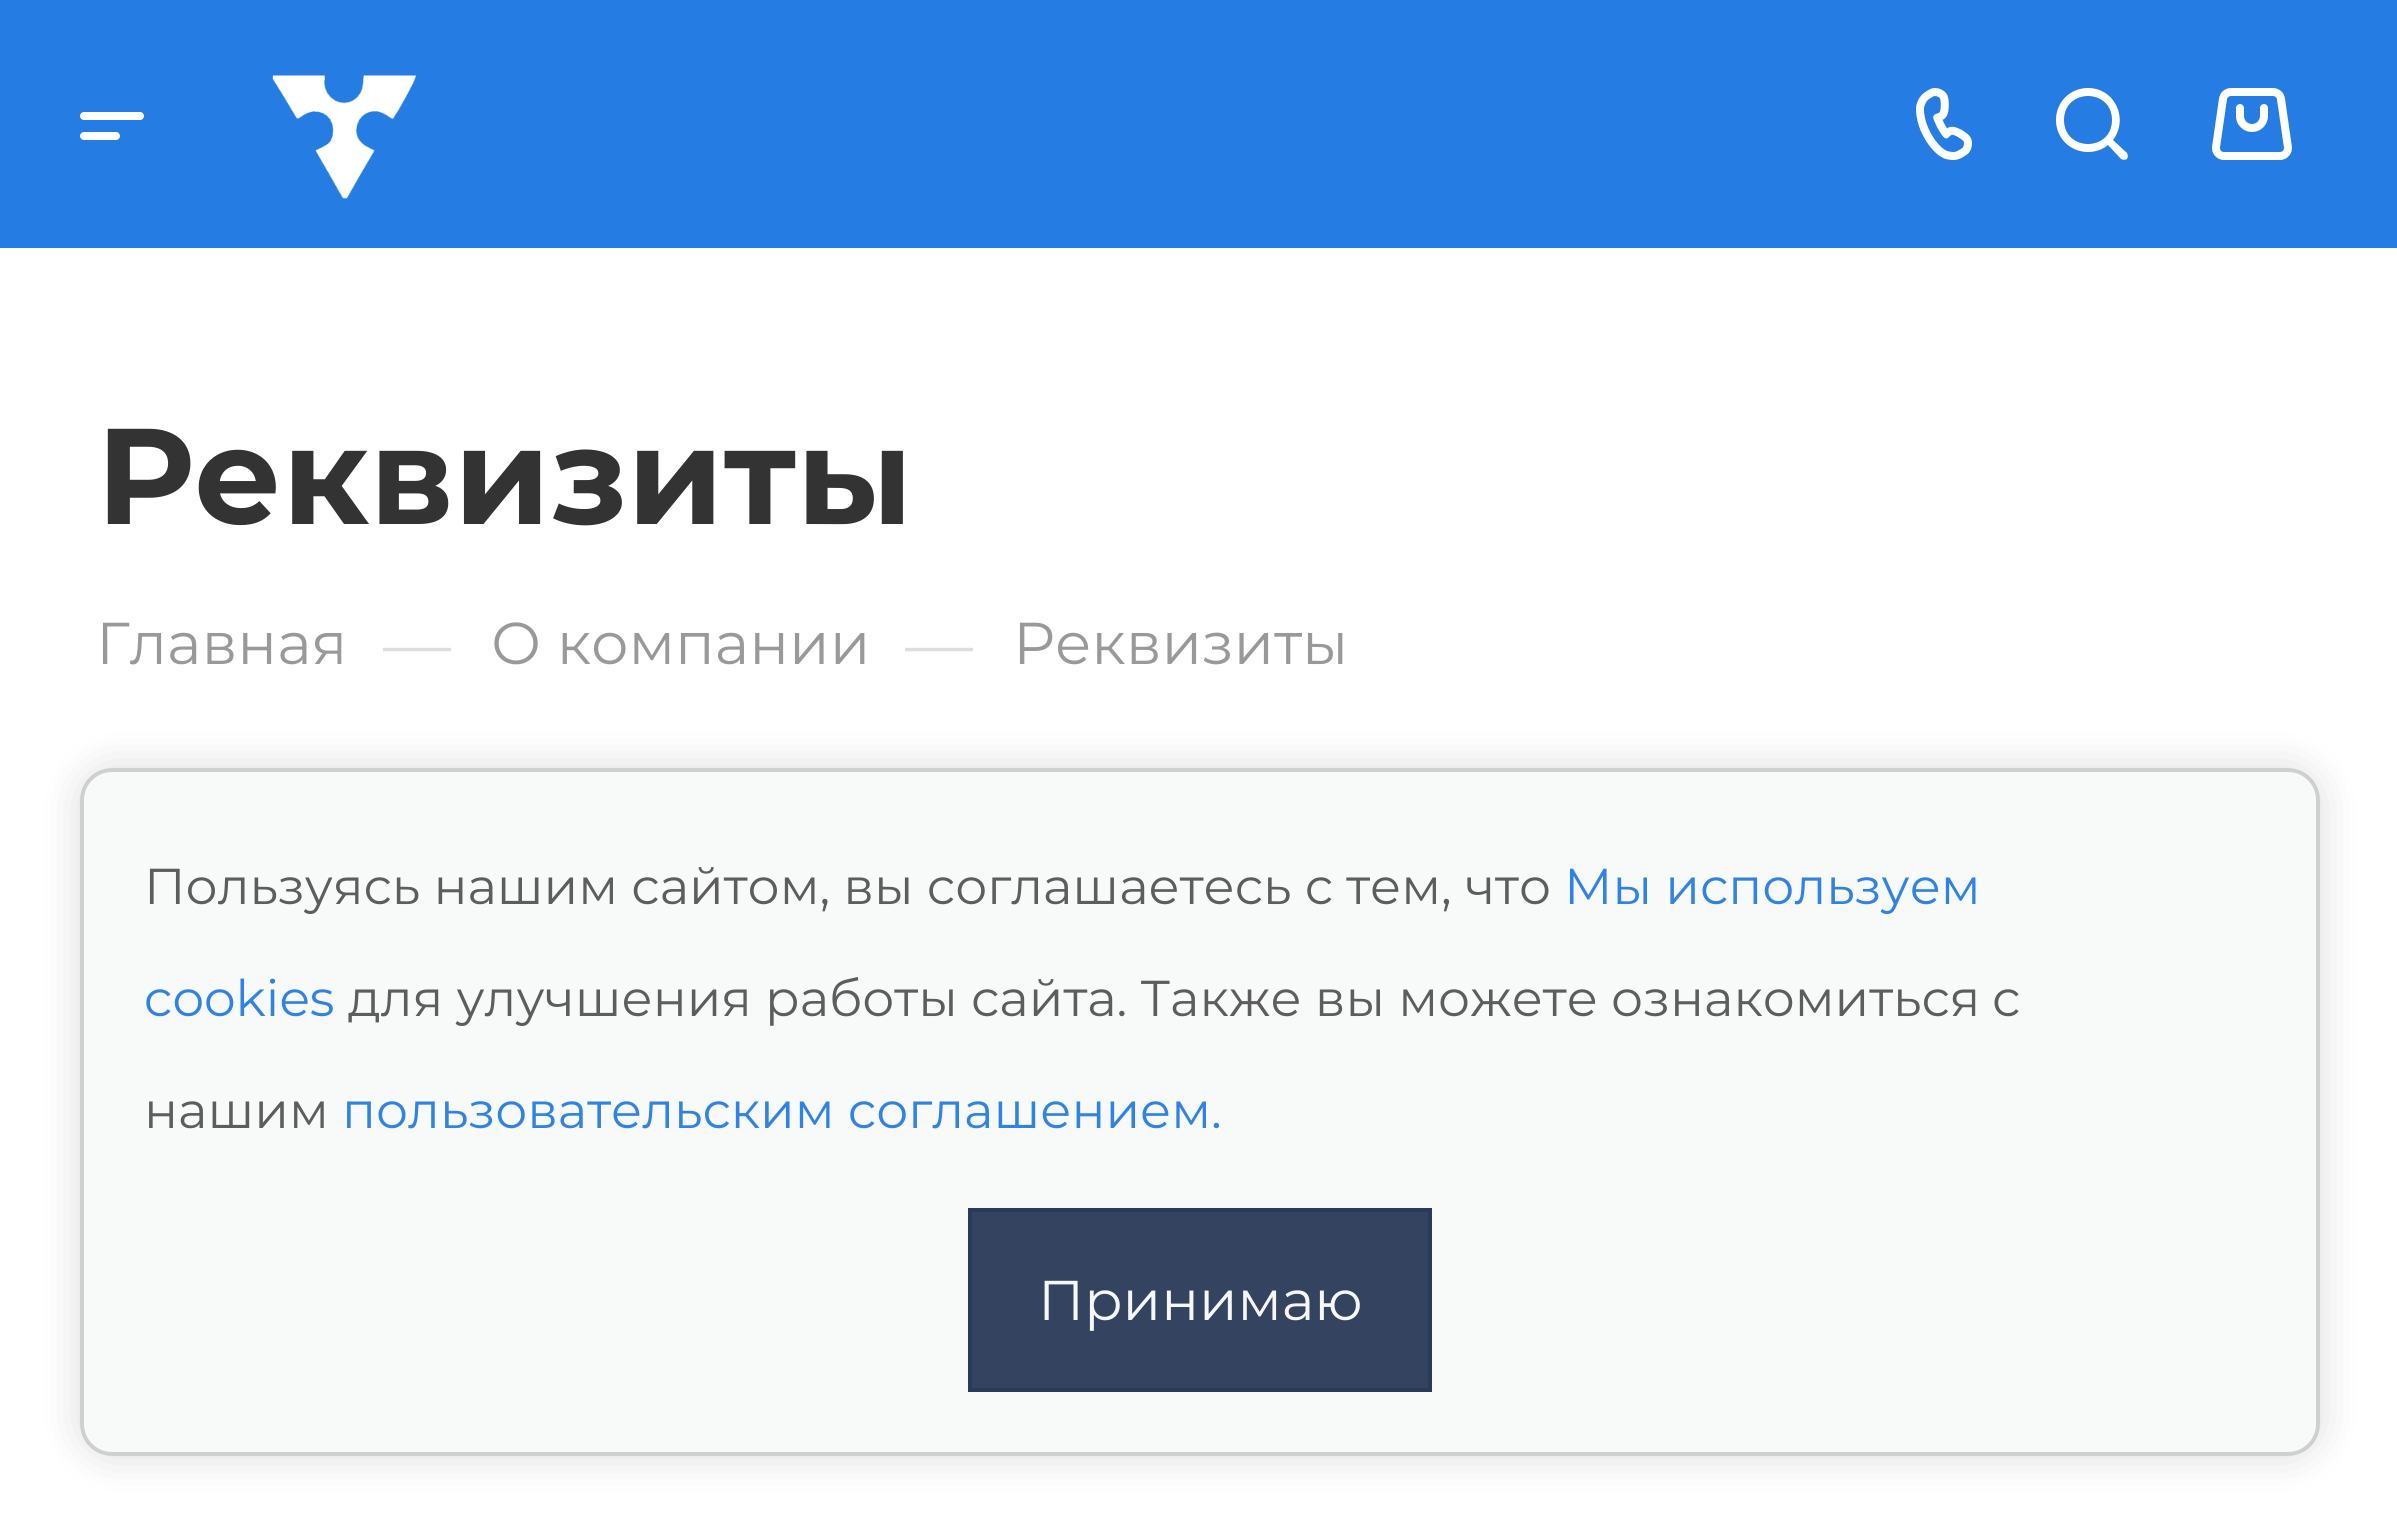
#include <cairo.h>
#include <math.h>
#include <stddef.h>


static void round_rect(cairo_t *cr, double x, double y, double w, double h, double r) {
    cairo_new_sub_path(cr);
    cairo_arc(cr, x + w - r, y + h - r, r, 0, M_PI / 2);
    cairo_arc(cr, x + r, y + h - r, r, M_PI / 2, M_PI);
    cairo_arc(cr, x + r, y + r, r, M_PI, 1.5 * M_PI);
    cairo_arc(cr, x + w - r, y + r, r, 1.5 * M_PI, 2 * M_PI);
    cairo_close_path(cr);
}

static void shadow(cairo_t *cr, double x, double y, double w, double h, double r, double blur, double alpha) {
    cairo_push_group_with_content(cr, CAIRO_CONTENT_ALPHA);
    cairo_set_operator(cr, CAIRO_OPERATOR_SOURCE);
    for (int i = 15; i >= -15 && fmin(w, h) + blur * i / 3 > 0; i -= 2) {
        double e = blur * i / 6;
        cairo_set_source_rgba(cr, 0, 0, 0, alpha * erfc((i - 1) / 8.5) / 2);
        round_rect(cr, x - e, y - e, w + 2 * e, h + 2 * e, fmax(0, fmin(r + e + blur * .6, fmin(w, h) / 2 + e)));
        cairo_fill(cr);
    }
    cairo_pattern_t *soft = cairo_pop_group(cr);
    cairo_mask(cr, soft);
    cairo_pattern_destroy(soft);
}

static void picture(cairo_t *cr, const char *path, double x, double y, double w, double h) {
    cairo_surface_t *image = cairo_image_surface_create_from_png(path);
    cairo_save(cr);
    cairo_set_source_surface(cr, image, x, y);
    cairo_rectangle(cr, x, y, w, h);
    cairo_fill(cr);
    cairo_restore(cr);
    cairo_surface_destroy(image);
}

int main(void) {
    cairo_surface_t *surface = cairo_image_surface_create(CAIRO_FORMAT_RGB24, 2397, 1536);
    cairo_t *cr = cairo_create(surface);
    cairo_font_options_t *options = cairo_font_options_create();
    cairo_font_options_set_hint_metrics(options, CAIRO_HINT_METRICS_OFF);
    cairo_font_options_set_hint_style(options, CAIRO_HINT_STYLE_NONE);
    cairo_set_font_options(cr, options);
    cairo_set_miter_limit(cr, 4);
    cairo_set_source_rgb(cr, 1, 1, 1);
    cairo_paint(cr);
    cairo_set_source_rgb(cr, 0.145, 0.49, 0.89);
    cairo_rectangle(cr, 0, 0, 2397, 248);
    cairo_fill(cr);
    picture(cr, "img1.png", 80, 112, 64, 28);
    picture(cr, "img2.png", 272, 75, 144, 124);
    picture(cr, "img3.png", 1916, 88, 56, 72);
    cairo_set_source_rgb(cr, 1, 1, 1);
    cairo_set_fill_rule(cr, CAIRO_FILL_RULE_EVEN_ODD);
    cairo_new_path(cr);
    cairo_move_to(cr, 2088, 88);
    cairo_curve_to(cr, 2070, 88, 2056, 102, 2056, 120);
    cairo_curve_to(cr, 2056, 138, 2070, 152, 2088, 152);
    cairo_curve_to(cr, 2095, 152, 2102, 150, 2108, 145);
    cairo_line_to(cr, 2121, 159);
    cairo_curve_to(cr, 2123, 160, 2125, 160, 2127, 159);
    cairo_curve_to(cr, 2128, 157, 2128, 155, 2127, 153);
    cairo_line_to(cr, 2113, 140);
    cairo_curve_to(cr, 2129, 119, 2115, 88, 2088, 88);
    cairo_close_path(cr);
    cairo_move_to(cr, 2064, 120);
    cairo_curve_to(cr, 2064, 88, 2112, 88, 2112, 120);
    cairo_curve_to(cr, 2112, 152, 2064, 152, 2064, 120);
    cairo_close_path(cr);
    cairo_fill(cr);
    picture(cr, "img4.png", 2212, 88, 80, 72);
    cairo_select_font_face(cr, "Montserrat", CAIRO_FONT_SLANT_NORMAL, CAIRO_FONT_WEIGHT_BOLD);
    cairo_set_font_size(cr, 136);
    cairo_set_source_rgb(cr, 0.2, 0.2, 0.2);
    cairo_move_to(cr, 96, 524);
    cairo_show_text(cr, "Реквизиты");
    cairo_select_font_face(cr, "Montserrat", CAIRO_FONT_SLANT_NORMAL, CAIRO_FONT_WEIGHT_NORMAL);
    cairo_set_font_size(cr, 59);
    cairo_set_source_rgb(cr, 0.6, 0.6, 0.6);
    cairo_move_to(cr, 96, 664);
    cairo_show_text(cr, "Главная");
    cairo_set_font_size(cr, 68);
    cairo_set_source_rgb(cr, 0.867, 0.867, 0.867);
    cairo_move_to(cr, 383, 668);
    cairo_show_text(cr, "—");
    cairo_set_font_size(cr, 59);
    cairo_set_source_rgb(cr, 0.6, 0.6, 0.6);
    cairo_move_to(cr, 491, 664);
    cairo_show_text(cr, "О компании");
    cairo_set_font_size(cr, 68);
    cairo_set_source_rgb(cr, 0.867, 0.867, 0.867);
    cairo_move_to(cr, 905, 668);
    cairo_show_text(cr, "—");
    cairo_set_font_size(cr, 59);
    cairo_set_source_rgb(cr, 0.6, 0.6, 0.6);
    cairo_move_to(cr, 1013, 664);
    cairo_show_text(cr, "Реквизиты");
    cairo_save(cr);
    cairo_new_path(cr);
    cairo_move_to(cr, 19, 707);
    cairo_line_to(cr, 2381, 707);
    cairo_line_to(cr, 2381, 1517);
    cairo_line_to(cr, 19, 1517);
    cairo_close_path(cr);
    cairo_move_to(cr, 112, 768);
    cairo_line_to(cr, 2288, 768);
    cairo_curve_to(cr, 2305.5, 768, 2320, 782.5, 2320, 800);
    cairo_line_to(cr, 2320, 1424);
    cairo_curve_to(cr, 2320, 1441.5, 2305.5, 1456, 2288, 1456);
    cairo_line_to(cr, 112, 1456);
    cairo_curve_to(cr, 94.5, 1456, 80, 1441.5, 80, 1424);
    cairo_line_to(cr, 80, 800);
    cairo_curve_to(cr, 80, 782.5, 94.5, 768, 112, 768);
    cairo_close_path(cr);
    cairo_clip(cr);
    cairo_set_source_rgb(cr, 0.051, 0.051, 0.051);
    shadow(cr, 80, 768, 2240, 688, 32, 20, 0.15);
    cairo_restore(cr);
    cairo_set_source_rgba(cr, 0.973, 0.976, 0.976, 0.95);
    round_rect(cr, 82, 770, 2236, 684, 30);
    cairo_fill_preserve(cr);
    cairo_set_source_rgb(cr, 0.812, 0.812, 0.812);
    cairo_set_line_width(cr, 4);
    cairo_stroke(cr);
    cairo_set_font_size(cr, 50.4);
    cairo_set_source_rgb(cr, 0.365, 0.365, 0.365);
    cairo_move_to(cr, 144, 904);
    cairo_show_text(cr, "Пользуясь нашим сайтом, вы соглашаетесь с тем, что");
    cairo_set_source_rgb(cr, 0.188, 0.514, 0.894);
    cairo_move_to(cr, 1564, 904);
    cairo_show_text(cr, "Мы используем");
    cairo_move_to(cr, 144, 1016);
    cairo_show_text(cr, "cookies");
    cairo_set_source_rgb(cr, 0.365, 0.365, 0.365);
    cairo_move_to(cr, 348, 1016);
    cairo_show_text(cr, "для улучшения работы сайта. Также вы можете ознакомиться");
    cairo_move_to(cr, 1992, 1016);
    cairo_show_text(cr, "с");
    cairo_move_to(cr, 144, 1128);
    cairo_show_text(cr, "нашим");
    cairo_set_source_rgb(cr, 0.188, 0.514, 0.894);
    cairo_move_to(cr, 342, 1128);
    cairo_show_text(cr, "пользовательским соглашением.");
    cairo_set_source_rgba(cr, 0.165, 0.227, 0.345, 0.95);
    cairo_rectangle(cr, 970, 1210, 460, 180);
    cairo_fill_preserve(cr);
    cairo_set_source_rgb(cr, 0.169, 0.227, 0.345);
    cairo_stroke(cr);
    cairo_set_font_size(cr, 56);
    cairo_set_source_rgb(cr, 0.961, 0.965, 0.969);
    cairo_move_to(cr, 1038, 1320);
    cairo_show_text(cr, "Принимаю");
    cairo_surface_write_to_png(surface, "page.png");
    cairo_font_options_destroy(options);
    cairo_destroy(cr);
    cairo_surface_destroy(surface);
    return 0;
}
